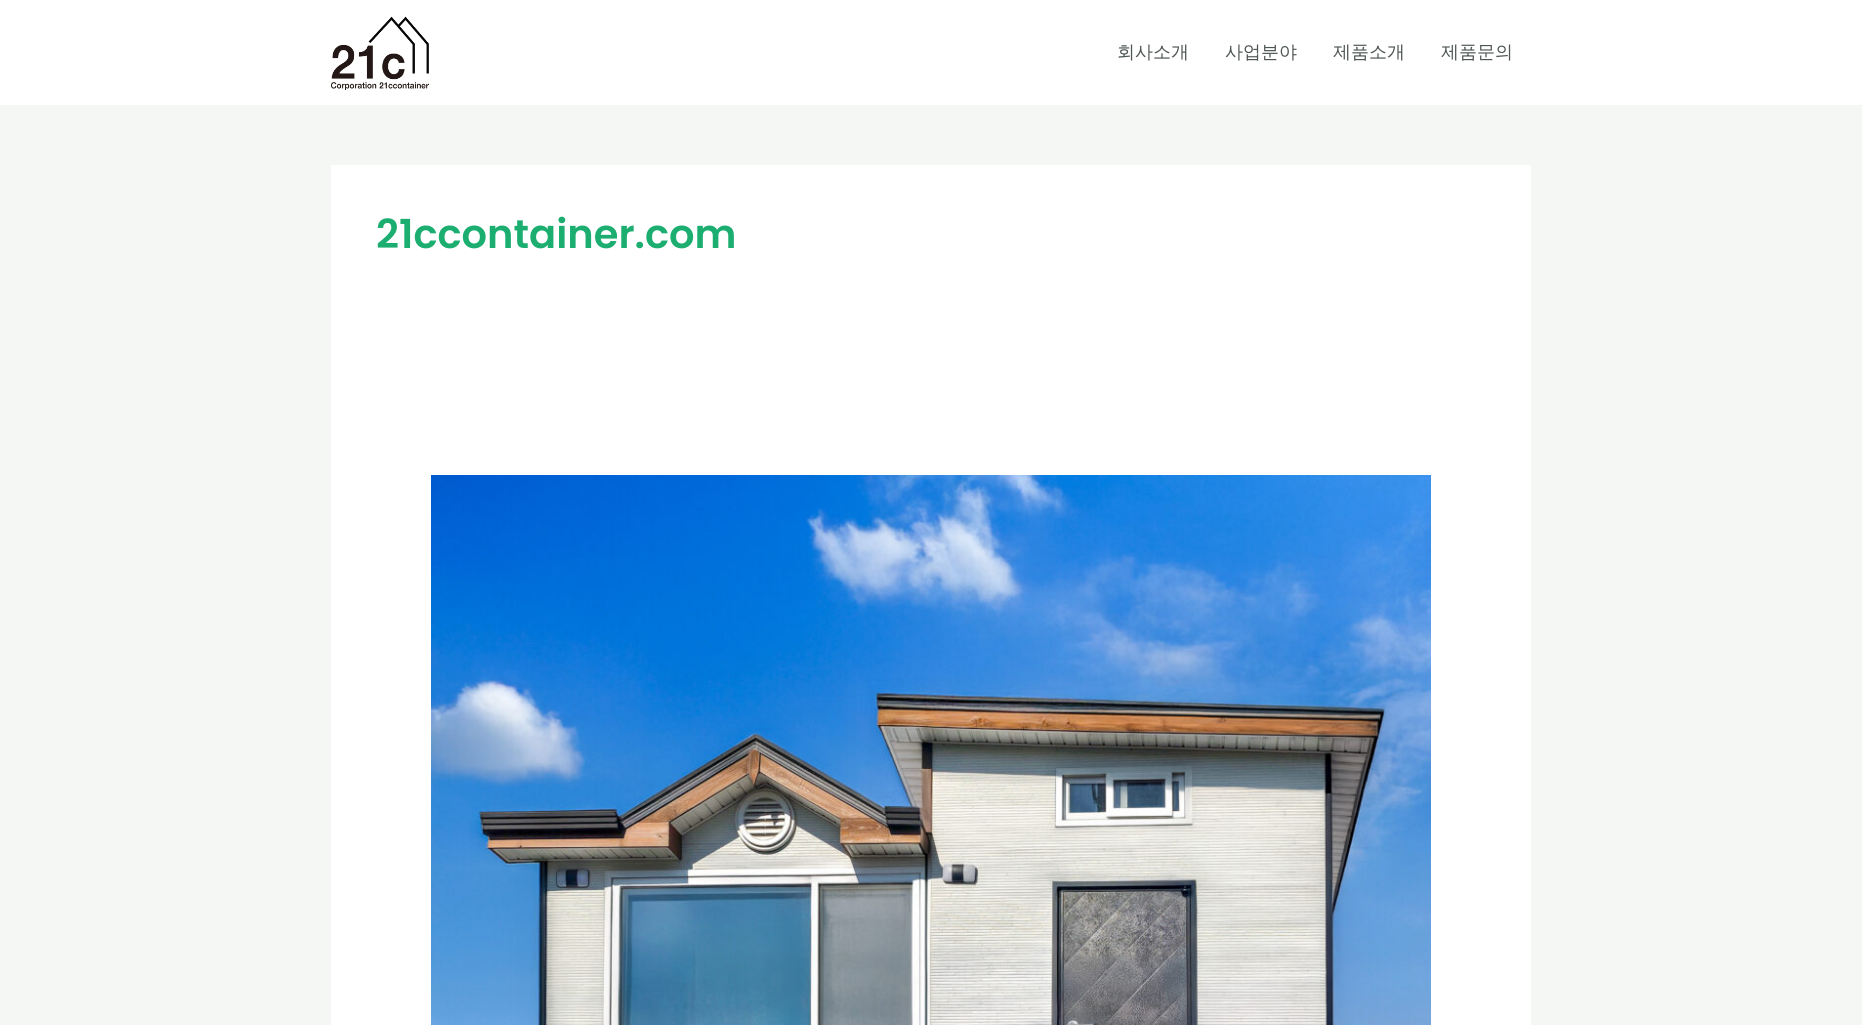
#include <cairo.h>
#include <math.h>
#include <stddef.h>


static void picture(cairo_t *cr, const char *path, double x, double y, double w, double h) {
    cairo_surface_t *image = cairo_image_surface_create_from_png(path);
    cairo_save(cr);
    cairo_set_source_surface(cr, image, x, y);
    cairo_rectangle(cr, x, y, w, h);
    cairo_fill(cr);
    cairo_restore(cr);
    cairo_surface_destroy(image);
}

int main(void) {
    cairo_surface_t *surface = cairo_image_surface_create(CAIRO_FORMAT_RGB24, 1862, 1025);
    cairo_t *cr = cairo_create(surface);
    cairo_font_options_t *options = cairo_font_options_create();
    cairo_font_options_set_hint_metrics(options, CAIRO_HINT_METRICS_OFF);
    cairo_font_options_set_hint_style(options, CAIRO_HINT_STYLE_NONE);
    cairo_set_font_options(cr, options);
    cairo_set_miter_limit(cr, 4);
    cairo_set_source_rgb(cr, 0.957, 0.965, 0.957);
    cairo_paint(cr);
    cairo_set_source_rgb(cr, 1, 1, 1);
    cairo_rectangle(cr, 0, 0, 1862, 105);
    cairo_fill(cr);
    picture(cr, "img1.png", 331, 16, 99, 74);
    cairo_select_font_face(cr, "WenQuanYi Zen Hei Medium", CAIRO_FONT_SLANT_NORMAL, CAIRO_FONT_WEIGHT_NORMAL);
    cairo_set_font_size(cr, 18);
    cairo_set_source_rgb(cr, 0.306, 0.337, 0.322);
    cairo_move_to(cr, 1117, 58);
    cairo_show_text(cr, "회사소개");
    cairo_move_to(cr, 1225, 58);
    cairo_show_text(cr, "사업분야");
    cairo_move_to(cr, 1333, 58);
    cairo_show_text(cr, "제품소개");
    cairo_move_to(cr, 1441, 58);
    cairo_show_text(cr, "제품문의");
    cairo_set_source_rgb(cr, 1, 1, 1);
    cairo_rectangle(cr, 331, 165, 1200, 860);
    cairo_fill(cr);
    cairo_select_font_face(cr, "Poppins SemiBold", CAIRO_FONT_SLANT_NORMAL, CAIRO_FONT_WEIGHT_NORMAL);
    cairo_set_font_size(cr, 40);
    cairo_set_source_rgb(cr, 0.106, 0.682, 0.439);
    cairo_move_to(cr, 376, 248);
    cairo_show_text(cr, "21ccontainer.com");
    picture(cr, "img2.png", 431, 475, 1000, 550);
    cairo_surface_write_to_png(surface, "page.png");
    cairo_font_options_destroy(options);
    cairo_destroy(cr);
    cairo_surface_destroy(surface);
    return 0;
}
